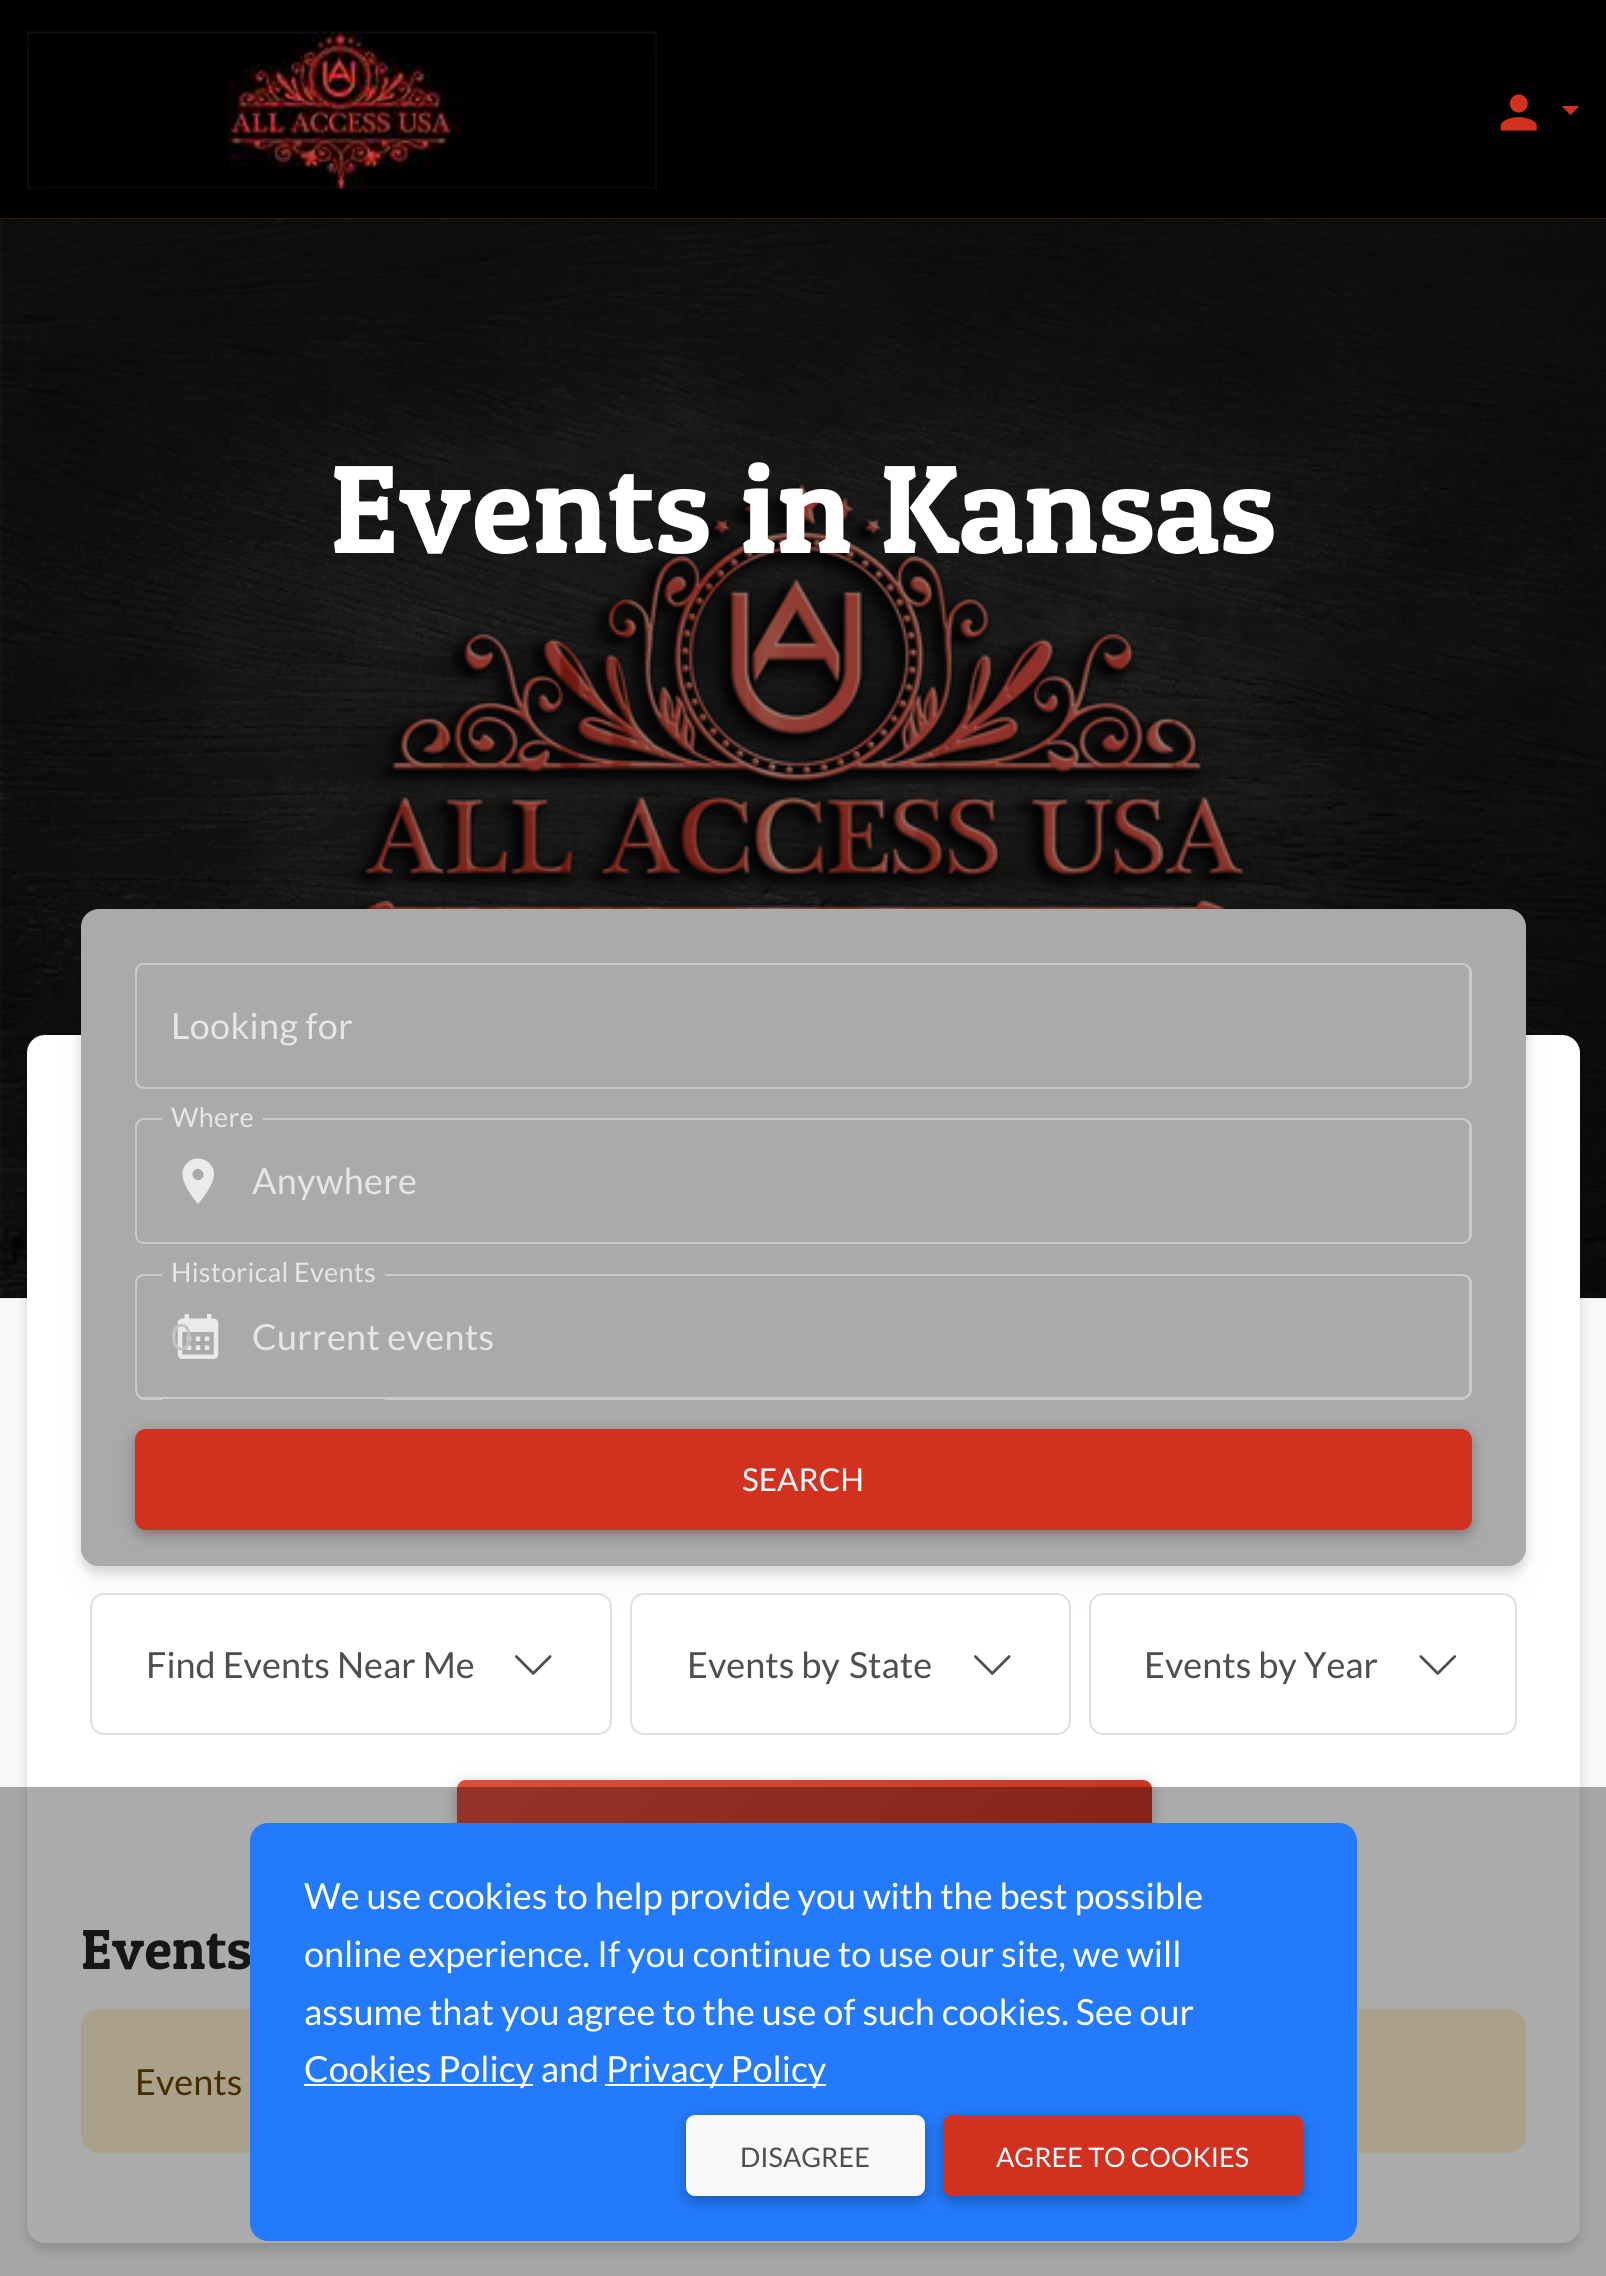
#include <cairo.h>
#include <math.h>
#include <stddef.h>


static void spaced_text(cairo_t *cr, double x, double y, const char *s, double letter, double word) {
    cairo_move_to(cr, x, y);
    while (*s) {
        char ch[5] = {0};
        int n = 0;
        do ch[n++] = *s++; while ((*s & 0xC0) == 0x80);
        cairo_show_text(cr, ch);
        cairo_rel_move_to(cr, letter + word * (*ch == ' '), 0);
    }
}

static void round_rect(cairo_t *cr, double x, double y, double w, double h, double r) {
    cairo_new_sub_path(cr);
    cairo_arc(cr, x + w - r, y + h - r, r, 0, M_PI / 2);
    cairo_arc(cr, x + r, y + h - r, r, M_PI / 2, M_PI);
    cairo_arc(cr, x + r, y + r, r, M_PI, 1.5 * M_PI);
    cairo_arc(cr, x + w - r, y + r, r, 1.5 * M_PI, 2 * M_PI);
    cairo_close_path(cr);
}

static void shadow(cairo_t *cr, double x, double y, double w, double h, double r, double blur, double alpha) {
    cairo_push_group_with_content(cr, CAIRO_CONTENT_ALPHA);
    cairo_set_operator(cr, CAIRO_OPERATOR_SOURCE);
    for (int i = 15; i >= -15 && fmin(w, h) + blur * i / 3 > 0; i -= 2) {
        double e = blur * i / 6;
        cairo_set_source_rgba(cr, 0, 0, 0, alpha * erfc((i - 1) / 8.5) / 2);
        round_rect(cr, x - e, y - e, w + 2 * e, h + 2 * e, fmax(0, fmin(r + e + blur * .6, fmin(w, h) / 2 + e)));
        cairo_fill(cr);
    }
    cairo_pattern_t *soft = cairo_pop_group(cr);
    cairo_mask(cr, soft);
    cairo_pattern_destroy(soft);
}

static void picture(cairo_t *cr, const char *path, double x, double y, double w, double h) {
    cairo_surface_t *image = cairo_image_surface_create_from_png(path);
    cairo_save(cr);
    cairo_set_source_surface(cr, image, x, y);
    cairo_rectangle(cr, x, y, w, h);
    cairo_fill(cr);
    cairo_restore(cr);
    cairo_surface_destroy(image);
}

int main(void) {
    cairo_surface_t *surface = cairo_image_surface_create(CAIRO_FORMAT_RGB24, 1606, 2276);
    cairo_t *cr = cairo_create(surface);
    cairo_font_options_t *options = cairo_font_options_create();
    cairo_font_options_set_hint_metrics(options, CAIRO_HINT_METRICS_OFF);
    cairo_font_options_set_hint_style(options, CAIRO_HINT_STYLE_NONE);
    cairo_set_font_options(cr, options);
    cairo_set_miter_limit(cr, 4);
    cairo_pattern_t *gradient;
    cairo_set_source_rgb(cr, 0.961, 0.969, 0.973);
    cairo_paint(cr);
    cairo_set_source_rgb(cr, 0.498, 0.114, 0.075);
    cairo_rectangle(cr, 0, 218, 1606, 1);
    cairo_fill(cr);
    picture(cr, "img3.png", 0, 218, 1606, 1081);
    cairo_set_source_rgb(cr, 0, 0, 0);
    shadow(cr, 0, 5, 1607, 218, 0, 4.5, 0.05);
    shadow(cr, 0, 9, 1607, 218, 0, 13.5, 0.07);
    cairo_set_source_rgb(cr, 0, 0, 0);
    cairo_rectangle(cr, 0, 0, 1606, 218);
    cairo_fill(cr);
    picture(cr, "img1.png", 27, 31, 630, 158);
    picture(cr, "img2.png", 1500, 94, 37, 37);
    cairo_set_source_rgb(cr, 0.827, 0.192, 0.125);
    cairo_new_path(cr);
    cairo_move_to(cr, 1561.5, 106);
    cairo_line_to(cr, 1579.5, 106);
    cairo_line_to(cr, 1570.5, 115);
    cairo_close_path(cr);
    cairo_fill(cr);
    cairo_select_font_face(cr, "Patua One", CAIRO_FONT_SLANT_NORMAL, CAIRO_FONT_WEIGHT_NORMAL);
    cairo_set_font_size(cr, 126);
    cairo_set_source_rgb(cr, 1, 1, 1);
    cairo_move_to(cr, 330, 553);
    cairo_show_text(cr, "Events in Kansas");
    cairo_set_source_rgb(cr, 0, 0, 0);
    shadow(cr, 27, 1042, 1553, 1208, 18, 5.5, 0.15);
    cairo_set_source_rgb(cr, 1, 1, 1);
    round_rect(cr, 27, 1035, 1553, 1208, 18);
    cairo_fill(cr);
    cairo_set_source_rgb(cr, 0, 0, 0);
    shadow(cr, 86, 936, 1435, 648, 14, 22.5, 0.04);
    shadow(cr, 81, 916, 1445, 657, 18, 5.5, 0.15);
    cairo_set_source_rgb(cr, 0.667, 0.667, 0.667);
    round_rect(cr, 81, 909, 1445, 657, 18);
    cairo_fill(cr);
    cairo_set_source_rgb(cr, 0.792, 0.792, 0.792);
    cairo_set_fill_rule(cr, CAIRO_FILL_RULE_EVEN_ODD);
    cairo_new_path(cr);
    cairo_move_to(cr, 144, 963);
    cairo_line_to(cr, 162, 963);
    cairo_line_to(cr, 162, 1089);
    cairo_line_to(cr, 144, 1089);
    cairo_curve_to(cr, 139, 1089, 135, 1085, 135, 1080);
    cairo_line_to(cr, 135, 972);
    cairo_curve_to(cr, 135, 967, 139, 963, 144, 963);
    cairo_close_path(cr);
    cairo_move_to(cr, 144, 965);
    cairo_line_to(cr, 162, 965);
    cairo_line_to(cr, 162, 1087);
    cairo_line_to(cr, 144, 1087);
    cairo_curve_to(cr, 140, 1087, 137, 1084, 137, 1080);
    cairo_line_to(cr, 137, 972);
    cairo_curve_to(cr, 137, 968, 140, 965, 144, 965);
    cairo_close_path(cr);
    cairo_fill(cr);
    cairo_rectangle(cr, 162, 963, 155, 2);
    cairo_fill(cr);
    cairo_rectangle(cr, 162, 1087, 155, 2);
    cairo_fill(cr);
    cairo_new_path(cr);
    cairo_move_to(cr, 317, 963);
    cairo_line_to(cr, 1462, 963);
    cairo_curve_to(cr, 1467, 963, 1472, 967, 1472, 972);
    cairo_line_to(cr, 1472, 1080);
    cairo_curve_to(cr, 1472, 1085, 1467, 1089, 1462, 1089);
    cairo_line_to(cr, 317, 1089);
    cairo_close_path(cr);
    cairo_move_to(cr, 317, 965);
    cairo_line_to(cr, 1462, 965);
    cairo_curve_to(cr, 1466, 965, 1469, 968, 1469, 972);
    cairo_line_to(cr, 1469, 1080);
    cairo_curve_to(cr, 1469, 1084, 1466, 1087, 1462, 1087);
    cairo_line_to(cr, 317, 1087);
    cairo_close_path(cr);
    cairo_fill(cr);
    cairo_select_font_face(cr, "Lato", CAIRO_FONT_SLANT_NORMAL, CAIRO_FONT_WEIGHT_NORMAL);
    cairo_set_font_size(cr, 36);
    cairo_set_source_rgb(cr, 0.902, 0.902, 0.902);
    spaced_text(cr, 171, 1039, "Looking for", 0.3, 0);
    cairo_set_source_rgb(cr, 0.792, 0.792, 0.792);
    cairo_new_path(cr);
    cairo_move_to(cr, 144, 1118);
    cairo_line_to(cr, 162, 1118);
    cairo_line_to(cr, 162, 1244);
    cairo_line_to(cr, 144, 1244);
    cairo_curve_to(cr, 139, 1244, 135, 1240, 135, 1235);
    cairo_line_to(cr, 135, 1127);
    cairo_curve_to(cr, 135, 1122, 139, 1118, 144, 1118);
    cairo_close_path(cr);
    cairo_move_to(cr, 144, 1120);
    cairo_line_to(cr, 162, 1120);
    cairo_line_to(cr, 162, 1242);
    cairo_line_to(cr, 144, 1242);
    cairo_curve_to(cr, 140, 1242, 137, 1239, 137, 1235);
    cairo_line_to(cr, 137, 1127);
    cairo_curve_to(cr, 137, 1124, 140, 1120, 144, 1120);
    cairo_close_path(cr);
    cairo_fill(cr);
    cairo_set_font_size(cr, 27);
    cairo_set_source_rgb(cr, 0.902, 0.902, 0.902);
    spaced_text(cr, 171, 1127, "Where", 0.25, 0);
    cairo_set_source_rgb(cr, 0.792, 0.792, 0.792);
    cairo_rectangle(cr, 162, 1242, 101, 2);
    cairo_fill(cr);
    cairo_set_font_size(cr, 36);
    cairo_set_source_rgb(cr, 0.902, 0.902, 0.902);
    spaced_text(cr, 252, 1194, "Anywhere", 0.3, 0);
    cairo_set_source_rgb(cr, 0.792, 0.792, 0.792);
    cairo_new_path(cr);
    cairo_move_to(cr, 263, 1118);
    cairo_line_to(cr, 1462, 1118);
    cairo_curve_to(cr, 1467, 1118, 1472, 1122, 1472, 1127);
    cairo_line_to(cr, 1472, 1235);
    cairo_curve_to(cr, 1472, 1240, 1467, 1244, 1462, 1244);
    cairo_line_to(cr, 263, 1244);
    cairo_close_path(cr);
    cairo_move_to(cr, 263, 1120);
    cairo_line_to(cr, 1462, 1120);
    cairo_curve_to(cr, 1466, 1120, 1469, 1124, 1469, 1127);
    cairo_line_to(cr, 1469, 1235);
    cairo_curve_to(cr, 1469, 1239, 1466, 1242, 1462, 1242);
    cairo_line_to(cr, 263, 1242);
    cairo_close_path(cr);
    cairo_fill(cr);
    cairo_set_source_rgb(cr, 0.918, 0.918, 0.918);
    cairo_set_fill_rule(cr, CAIRO_FILL_RULE_WINDING);
    cairo_new_path(cr);
    cairo_move_to(cr, 194, 1178);
    cairo_curve_to(cr, 199, 1184, 207, 1176, 202, 1171);
    cairo_curve_to(cr, 197, 1165, 189, 1173, 194, 1178);
    cairo_close_path(cr);
    cairo_move_to(cr, 187, 1163);
    cairo_curve_to(cr, 197, 1153, 215, 1161, 214, 1175);
    cairo_curve_to(cr, 213, 1185, 204, 1197, 198, 1204);
    cairo_curve_to(cr, 190, 1194, 175, 1175, 187, 1163);
    cairo_close_path(cr);
    cairo_fill(cr);
    cairo_set_source_rgb(cr, 0, 0, 0);
    shadow(cr, 135, 1433, 1337, 102, 11, 11, 0.1);
    cairo_set_source_rgb(cr, 0.792, 0.792, 0.792);
    cairo_set_fill_rule(cr, CAIRO_FILL_RULE_EVEN_ODD);
    cairo_new_path(cr);
    cairo_move_to(cr, 144, 1274);
    cairo_line_to(cr, 162, 1274);
    cairo_line_to(cr, 162, 1400);
    cairo_line_to(cr, 144, 1400);
    cairo_curve_to(cr, 139, 1400, 135, 1395, 135, 1390);
    cairo_line_to(cr, 135, 1282);
    cairo_curve_to(cr, 135, 1278, 139, 1274, 144, 1274);
    cairo_close_path(cr);
    cairo_move_to(cr, 144, 1276);
    cairo_line_to(cr, 162, 1276);
    cairo_line_to(cr, 162, 1397);
    cairo_line_to(cr, 144, 1397);
    cairo_curve_to(cr, 140, 1397, 137, 1394, 137, 1390);
    cairo_line_to(cr, 137, 1282);
    cairo_curve_to(cr, 137, 1279, 140, 1276, 144, 1276);
    cairo_close_path(cr);
    cairo_fill(cr);
    cairo_set_font_size(cr, 27);
    cairo_set_source_rgb(cr, 0.902, 0.902, 0.902);
    spaced_text(cr, 171, 1282, "Historical Events", 0.25, 0);
    cairo_set_source_rgb(cr, 0.792, 0.792, 0.792);
    cairo_rectangle(cr, 162, 1397, 223, 2);
    cairo_fill(cr);
    cairo_set_font_size(cr, 36);
    cairo_set_source_rgb(cr, 0.902, 0.902, 0.902);
    spaced_text(cr, 252, 1350, "Current events", 0.3, 0);
    cairo_set_source_rgb(cr, 0.792, 0.792, 0.792);
    cairo_new_path(cr);
    cairo_move_to(cr, 385, 1274);
    cairo_line_to(cr, 1462, 1274);
    cairo_curve_to(cr, 1467, 1274, 1472, 1278, 1472, 1282);
    cairo_line_to(cr, 1472, 1390);
    cairo_curve_to(cr, 1472, 1395, 1467, 1400, 1462, 1400);
    cairo_line_to(cr, 385, 1400);
    cairo_close_path(cr);
    cairo_move_to(cr, 385, 1276);
    cairo_line_to(cr, 1462, 1276);
    cairo_curve_to(cr, 1466, 1276, 1469, 1279, 1469, 1282);
    cairo_line_to(cr, 1469, 1390);
    cairo_curve_to(cr, 1469, 1394, 1466, 1397, 1462, 1397);
    cairo_line_to(cr, 385, 1397);
    cairo_close_path(cr);
    cairo_fill(cr);
    picture(cr, "img4.png", 177, 1314, 42, 45);
    cairo_set_source_rgb(cr, 0.765, 0.765, 0.765);
    spaced_text(cr, 171, 1350, "0", 0.3, 0);
    cairo_set_source_rgb(cr, 0, 0, 0);
    shadow(cr, 135, 1433, 1337, 102, 11, 5.5, 0.2);
    cairo_set_source_rgb(cr, 0.827, 0.192, 0.125);
    round_rect(cr, 135, 1429, 1337, 101, 11);
    cairo_fill(cr);
    cairo_set_font_size(cr, 31.5);
    cairo_set_source_rgb(cr, 1, 1, 1);
    cairo_move_to(cr, 742, 1491);
    cairo_show_text(cr, "SEARCH");
    round_rect(cr, 91, 1594, 520, 140, 13);
    cairo_fill_preserve(cr);
    cairo_set_source_rgb(cr, 0.878, 0.878, 0.878);
    cairo_stroke(cr);
    cairo_set_font_size(cr, 36);
    cairo_set_source_rgb(cr, 0.31, 0.31, 0.31);
    cairo_move_to(cr, 146, 1678);
    cairo_show_text(cr, "Find Events Near Me");
    picture(cr, "img5.png", 515, 1655, 37, 20);
    cairo_set_source_rgb(cr, 1, 1, 1);
    round_rect(cr, 631, 1594, 439, 140, 13);
    cairo_fill_preserve(cr);
    cairo_set_source_rgb(cr, 0.878, 0.878, 0.878);
    cairo_stroke(cr);
    cairo_set_source_rgb(cr, 0.31, 0.31, 0.31);
    cairo_move_to(cr, 687, 1678);
    cairo_show_text(cr, "Events by");
    cairo_move_to(cr, 849, 1678);
    cairo_show_text(cr, "State");
    picture(cr, "img5.png", 974, 1655, 37, 20);
    cairo_set_source_rgb(cr, 1, 1, 1);
    round_rect(cr, 1090, 1594, 426, 140, 13);
    cairo_fill_preserve(cr);
    cairo_set_source_rgb(cr, 0.878, 0.878, 0.878);
    cairo_stroke(cr);
    cairo_set_source_rgb(cr, 0.31, 0.31, 0.31);
    cairo_move_to(cr, 1144, 1678);
    cairo_show_text(cr, "Events by Year");
    picture(cr, "img6.png", 1419, 1655, 37, 20);
    cairo_set_source_rgb(cr, 0, 0, 0);
    shadow(cr, 457, 1784, 695, 81, 9, 11, 0.1);
    shadow(cr, 457, 1784, 695, 81, 9, 5.5, 0.2);
    gradient = cairo_pattern_create_linear(513, 1529, 1095, 2111);
    cairo_pattern_add_color_stop_rgba(gradient, 0, 0.89, 0.325, 0.263, 1);
    cairo_pattern_add_color_stop_rgba(gradient, 1, 0.757, 0.176, 0.114, 1);
    cairo_set_source(cr, gradient);
    cairo_pattern_destroy(gradient);
    round_rect(cr, 457, 1780, 695, 81, 9);
    cairo_fill(cr);
    cairo_select_font_face(cr, "Patua One", CAIRO_FONT_SLANT_NORMAL, CAIRO_FONT_WEIGHT_NORMAL);
    cairo_set_font_size(cr, 56.5);
    cairo_set_source_rgb(cr, 0.129, 0.129, 0.129);
    cairo_move_to(cr, 81, 1969);
    cairo_show_text(cr, "Events");
    cairo_set_source_rgb(cr, 1, 0.933, 0.8);
    round_rect(cr, 81, 2009, 1445, 144, 18);
    cairo_fill(cr);
    cairo_select_font_face(cr, "Lato", CAIRO_FONT_SLANT_NORMAL, CAIRO_FONT_WEIGHT_NORMAL);
    cairo_set_font_size(cr, 36);
    cairo_set_source_rgb(cr, 0.4, 0.267, 0);
    cairo_move_to(cr, 135, 2095);
    cairo_show_text(cr, "Events");
    cairo_set_source_rgba(cr, 0, 0, 0, 0.33);
    cairo_rectangle(cr, 0, 1787, 1606, 489);
    cairo_fill(cr);
    cairo_set_source_rgb(cr, 0.137, 0.478, 0.988);
    round_rect(cr, 250, 1823, 1107, 418, 18);
    cairo_fill(cr);
    cairo_set_source_rgb(cr, 1, 1, 1);
    cairo_move_to(cr, 304, 1909);
    cairo_show_text(cr, "We use cookies to help provide you with the best possible");
    cairo_move_to(cr, 304, 1967);
    cairo_show_text(cr, "online experience. If you continue to use our site, we will");
    cairo_move_to(cr, 304, 2025);
    cairo_show_text(cr, "assume that you agree to the use of such cookies. See our");
    cairo_rectangle(cr, 304, 2084, 229, 2);
    cairo_fill(cr);
    cairo_move_to(cr, 304, 2082);
    cairo_show_text(cr, "Cookies Policy and");
    cairo_rectangle(cr, 605, 2084, 221, 2);
    cairo_fill(cr);
    cairo_set_source_rgb(cr, 0, 0, 0);
    shadow(cr, 943, 2120, 360, 81, 9, 11, 0.1);
    shadow(cr, 943, 2120, 360, 81, 9, 5.5, 0.2);
    cairo_set_source_rgb(cr, 0.827, 0.192, 0.125);
    round_rect(cr, 943, 2115, 360, 81, 9);
    cairo_fill(cr);
    cairo_set_source_rgb(cr, 0, 0, 0);
    shadow(cr, 686, 2120, 239, 81, 9, 11, 0.1);
    cairo_set_source_rgb(cr, 1, 1, 1);
    cairo_move_to(cr, 606, 2082);
    cairo_show_text(cr, "Privacy Policy");
    cairo_set_source_rgb(cr, 0, 0, 0);
    shadow(cr, 686, 2120, 239, 81, 9, 5.5, 0.2);
    cairo_set_source_rgb(cr, 0.976, 0.976, 0.976);
    round_rect(cr, 686, 2115, 239, 81, 9);
    cairo_fill(cr);
    cairo_set_font_size(cr, 27);
    cairo_set_source_rgb(cr, 0.31, 0.31, 0.31);
    cairo_move_to(cr, 740, 2167);
    cairo_show_text(cr, "DISAGREE");
    cairo_set_source_rgb(cr, 1, 1, 1);
    cairo_move_to(cr, 996, 2167);
    cairo_show_text(cr, "AGREE TO COOKIES");
    cairo_surface_write_to_png(surface, "page.png");
    cairo_font_options_destroy(options);
    cairo_destroy(cr);
    cairo_surface_destroy(surface);
    return 0;
}
